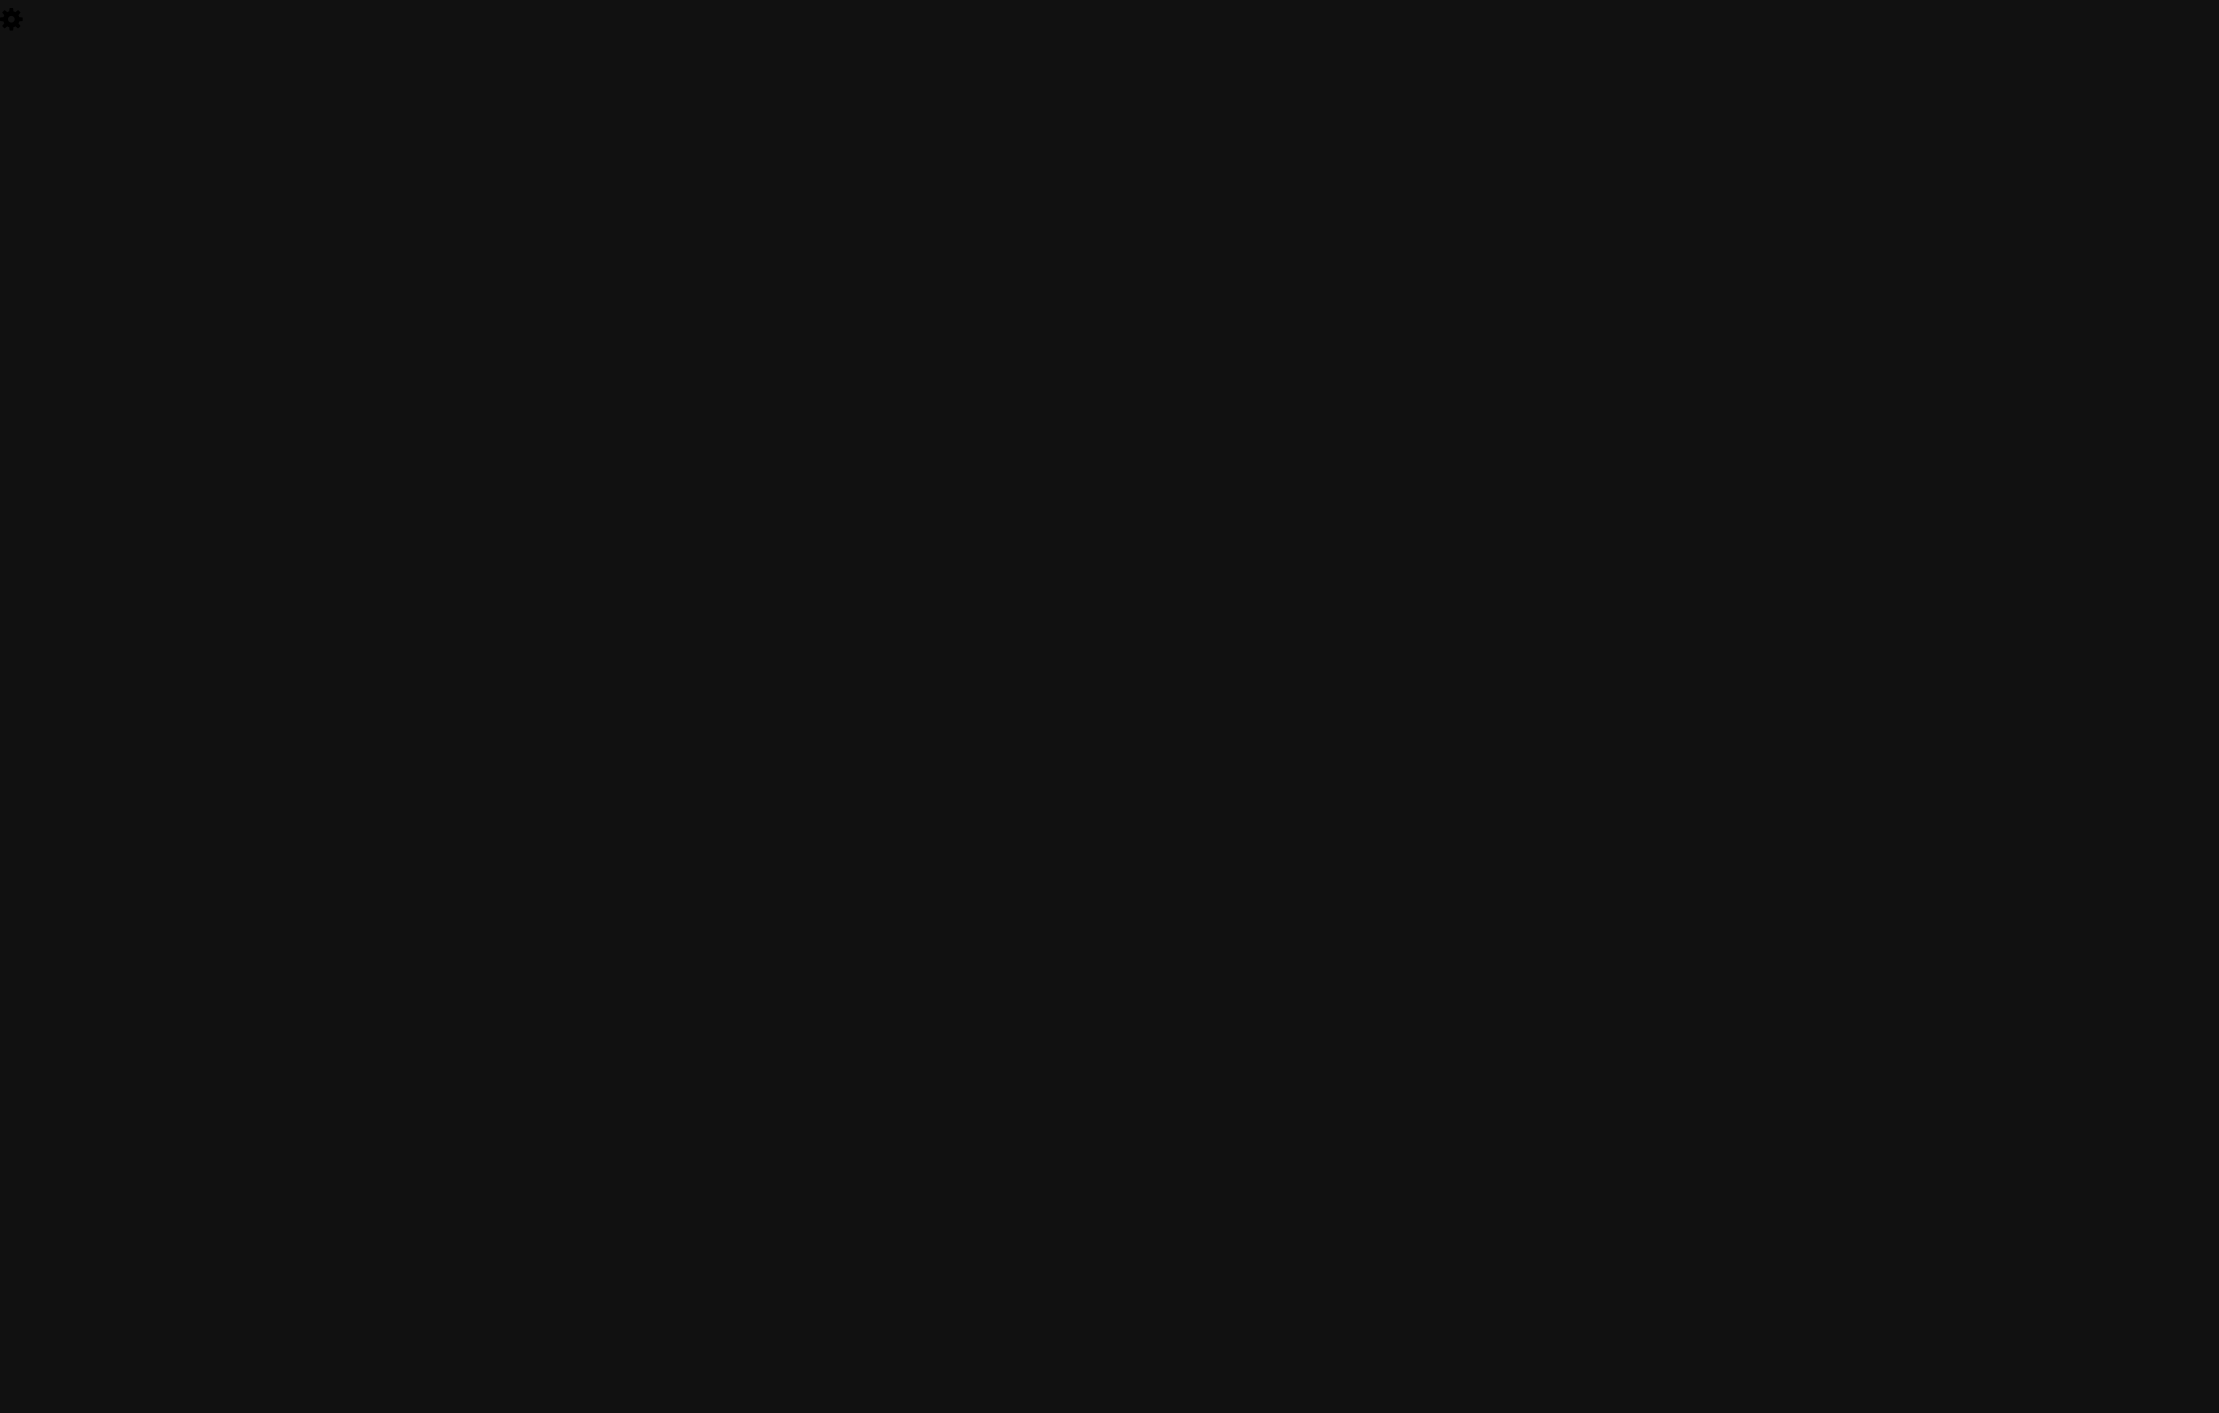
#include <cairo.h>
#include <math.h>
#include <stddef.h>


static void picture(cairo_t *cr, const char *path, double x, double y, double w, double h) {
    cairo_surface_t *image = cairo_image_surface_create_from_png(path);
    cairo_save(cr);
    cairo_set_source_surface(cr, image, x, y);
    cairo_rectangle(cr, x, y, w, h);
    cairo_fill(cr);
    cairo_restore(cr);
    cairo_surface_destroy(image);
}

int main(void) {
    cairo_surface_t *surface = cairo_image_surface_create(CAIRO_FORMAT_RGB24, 2219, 1413);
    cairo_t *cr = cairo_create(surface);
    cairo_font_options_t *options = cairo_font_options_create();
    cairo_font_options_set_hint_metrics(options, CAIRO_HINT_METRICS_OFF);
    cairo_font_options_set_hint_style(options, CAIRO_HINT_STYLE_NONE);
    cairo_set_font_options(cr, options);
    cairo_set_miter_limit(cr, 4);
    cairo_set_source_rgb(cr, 0.067, 0.067, 0.067);
    cairo_paint(cr);
    picture(cr, "img1.png", 0, 8, 23, 23);
    cairo_surface_write_to_png(surface, "page.png");
    cairo_font_options_destroy(options);
    cairo_destroy(cr);
    cairo_surface_destroy(surface);
    return 0;
}
